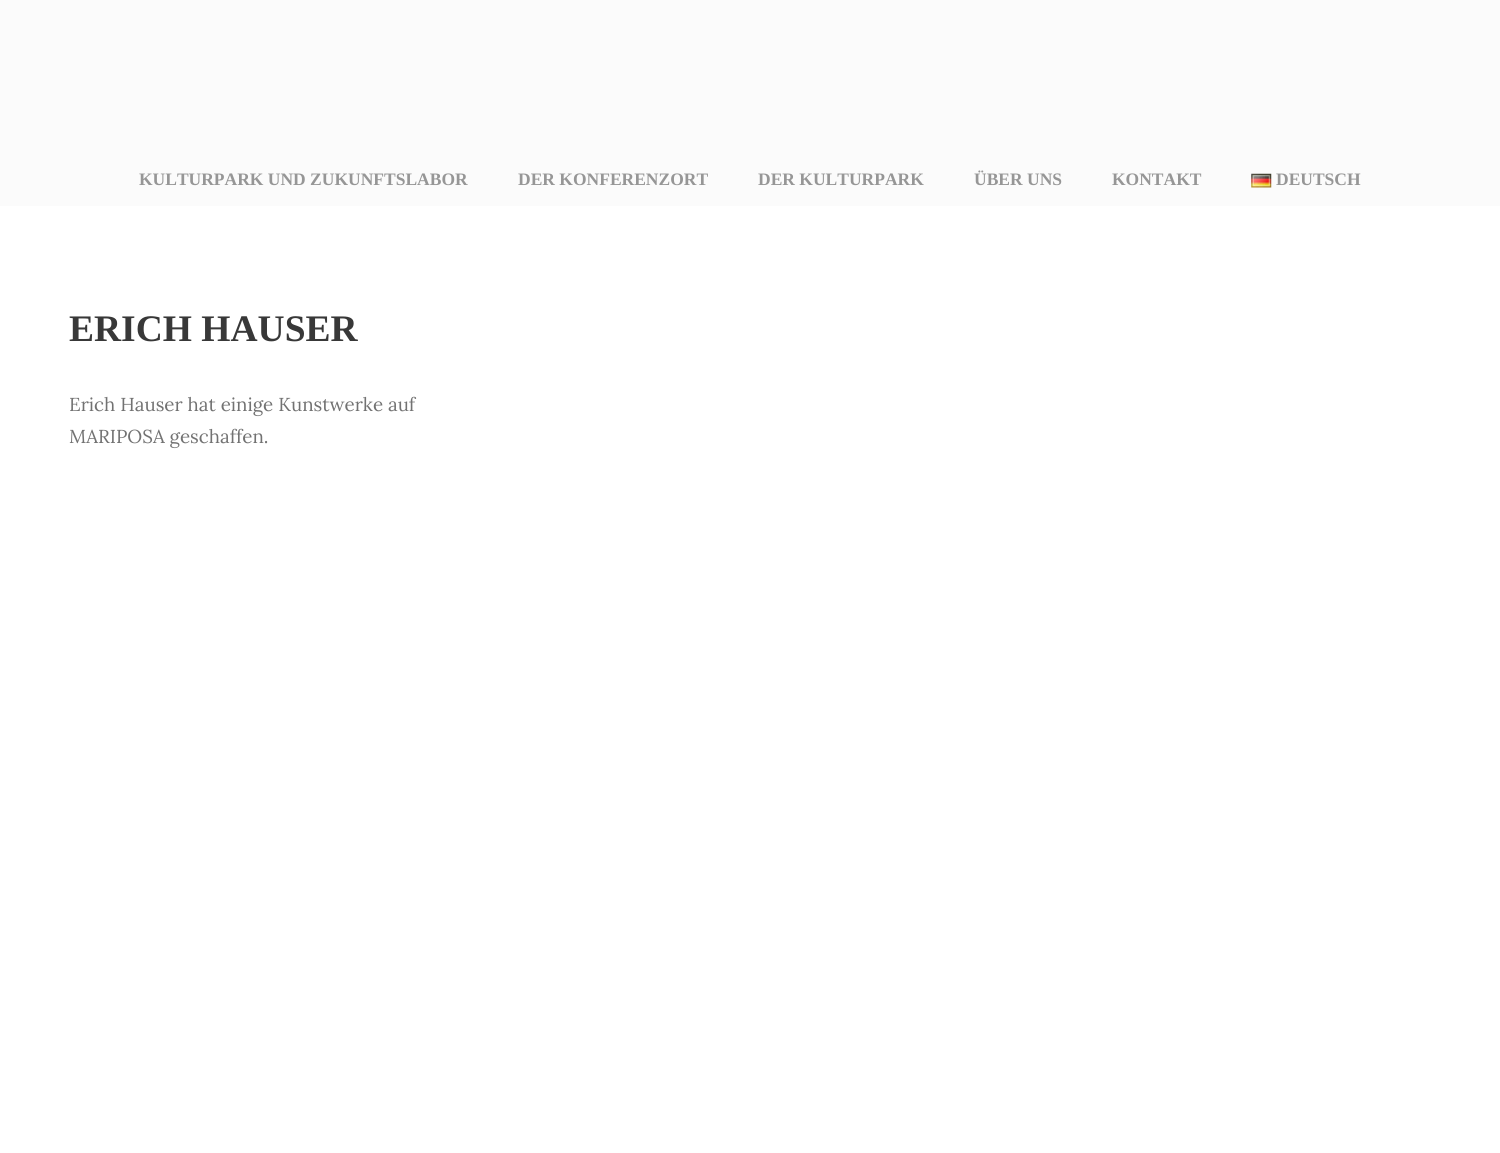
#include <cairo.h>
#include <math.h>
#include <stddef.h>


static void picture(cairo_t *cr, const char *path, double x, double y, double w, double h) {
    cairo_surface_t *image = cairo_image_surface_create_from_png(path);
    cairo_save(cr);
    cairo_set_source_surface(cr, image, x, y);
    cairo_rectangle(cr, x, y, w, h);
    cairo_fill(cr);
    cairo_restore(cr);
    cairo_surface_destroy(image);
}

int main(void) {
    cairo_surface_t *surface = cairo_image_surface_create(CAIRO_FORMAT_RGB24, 1500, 1153);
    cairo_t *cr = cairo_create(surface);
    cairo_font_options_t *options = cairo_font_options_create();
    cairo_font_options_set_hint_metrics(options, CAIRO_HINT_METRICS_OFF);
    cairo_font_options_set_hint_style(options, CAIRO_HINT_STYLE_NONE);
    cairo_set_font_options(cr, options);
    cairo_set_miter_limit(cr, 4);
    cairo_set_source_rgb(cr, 1, 1, 1);
    cairo_paint(cr);
    cairo_set_source_rgb(cr, 0.984, 0.984, 0.984);
    cairo_rectangle(cr, 0, 0, 1500, 206);
    cairo_fill(cr);
    cairo_select_font_face(cr, "Liberation Serif", CAIRO_FONT_SLANT_NORMAL, CAIRO_FONT_WEIGHT_BOLD);
    cairo_set_font_size(cr, 17.5);
    cairo_set_source_rgb(cr, 0.588, 0.588, 0.588);
    cairo_move_to(cr, 139, 185);
    cairo_show_text(cr, "KULTURPARK UND ZUKUNFTSLABOR");
    cairo_move_to(cr, 518, 185);
    cairo_show_text(cr, "DER KONFERENZORT");
    cairo_move_to(cr, 758, 185);
    cairo_show_text(cr, "DER KULTURPARK");
    cairo_move_to(cr, 974, 185);
    cairo_show_text(cr, "ÜBER UNS");
    cairo_move_to(cr, 1112, 185);
    cairo_show_text(cr, "KONTAKT");
    picture(cr, "img1.png", 1251, 173, 21, 15);
    cairo_move_to(cr, 1276, 185);
    cairo_show_text(cr, "DEUTSCH");
    cairo_set_font_size(cr, 37.5);
    cairo_set_source_rgb(cr, 0.22, 0.22, 0.22);
    cairo_move_to(cr, 69, 341);
    cairo_show_text(cr, "ERICH HAUSER");
    cairo_select_font_face(cr, "Lora", CAIRO_FONT_SLANT_NORMAL, CAIRO_FONT_WEIGHT_NORMAL);
    cairo_set_font_size(cr, 18.75);
    cairo_set_source_rgb(cr, 0.447, 0.447, 0.447);
    cairo_move_to(cr, 69, 411);
    cairo_show_text(cr, "Erich Hauser hat einige Kunstwerke auf");
    cairo_move_to(cr, 69, 443);
    cairo_show_text(cr, "MARIPOSA geschaffen.");
    cairo_surface_write_to_png(surface, "page.png");
    cairo_font_options_destroy(options);
    cairo_destroy(cr);
    cairo_surface_destroy(surface);
    return 0;
}
